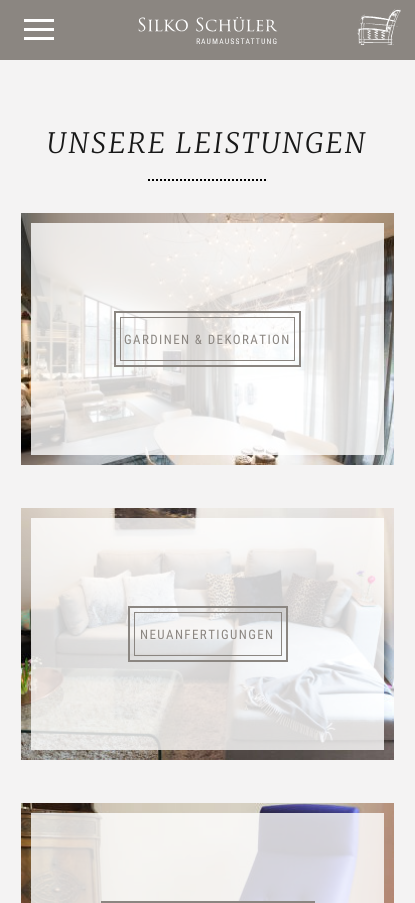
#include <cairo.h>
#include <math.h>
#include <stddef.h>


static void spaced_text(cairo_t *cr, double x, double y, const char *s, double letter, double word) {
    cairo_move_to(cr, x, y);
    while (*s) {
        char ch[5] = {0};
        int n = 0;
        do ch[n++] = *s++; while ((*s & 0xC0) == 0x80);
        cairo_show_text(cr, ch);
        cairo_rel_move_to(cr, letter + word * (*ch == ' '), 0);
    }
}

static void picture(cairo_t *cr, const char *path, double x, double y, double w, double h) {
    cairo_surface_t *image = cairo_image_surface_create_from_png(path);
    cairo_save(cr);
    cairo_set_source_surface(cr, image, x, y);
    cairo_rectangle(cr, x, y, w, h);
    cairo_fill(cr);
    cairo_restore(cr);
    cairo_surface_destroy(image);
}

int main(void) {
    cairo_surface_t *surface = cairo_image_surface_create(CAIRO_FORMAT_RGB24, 415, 903);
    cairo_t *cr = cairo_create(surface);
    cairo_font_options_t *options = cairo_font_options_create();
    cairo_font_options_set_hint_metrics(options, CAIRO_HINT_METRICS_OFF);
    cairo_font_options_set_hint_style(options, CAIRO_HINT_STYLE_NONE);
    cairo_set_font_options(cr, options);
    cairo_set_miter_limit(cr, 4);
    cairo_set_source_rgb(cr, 0.957, 0.953, 0.953);
    cairo_paint(cr);
    cairo_set_source_rgb(cr, 0.545, 0.525, 0.506);
    cairo_rectangle(cr, 0, 0, 415, 60);
    cairo_fill(cr);
    cairo_set_source_rgb(cr, 1, 1, 1);
    cairo_rectangle(cr, 24, 19, 30, 3);
    cairo_fill(cr);
    cairo_rectangle(cr, 24, 28, 30, 3);
    cairo_fill(cr);
    cairo_rectangle(cr, 24, 37, 30, 3);
    cairo_fill(cr);
    picture(cr, "img1.png", 138, 17, 140, 27);
    picture(cr, "img2.png", 357, 8, 44, 37);
    cairo_select_font_face(cr, "Merriweather Light", CAIRO_FONT_SLANT_ITALIC, CAIRO_FONT_WEIGHT_NORMAL);
    cairo_set_font_size(cr, 28);
    cairo_set_source_rgb(cr, 0.094, 0.094, 0.094);
    spaced_text(cr, 47, 153, "UNSERE LEISTUNGEN", 2.25, 0);
    cairo_new_path(cr);
    cairo_move_to(cr, 148, 180);
    cairo_line_to(cr, 268, 180);
    cairo_set_source_rgb(cr, 0, 0, 0);
    cairo_set_dash(cr, (double[]){2, 2}, 2, 0);
    cairo_stroke(cr);
    picture(cr, "img3.png", 21, 213, 373, 252);
    cairo_set_source_rgba(cr, 1, 1, 1, 0.8);
    cairo_rectangle(cr, 31, 223, 353, 232);
    cairo_fill(cr);
    cairo_rectangle(cr, 115, 312, 185, 54);
    cairo_set_source_rgb(cr, 0.545, 0.525, 0.506);
    cairo_set_dash(cr, NULL, 0, 0);
    cairo_stroke(cr);
    cairo_rectangle(cr, 120.5, 317.5, 174, 43);
    cairo_set_line_width(cr, 1);
    cairo_stroke(cr);
    cairo_select_font_face(cr, "Roboto Condensed", CAIRO_FONT_SLANT_NORMAL, CAIRO_FONT_WEIGHT_NORMAL);
    cairo_set_font_size(cr, 13);
    spaced_text(cr, 124, 344, "GARDINEN & DEKORATION", 1.4, 0);
    picture(cr, "img4.png", 21, 508, 373, 252);
    cairo_set_source_rgba(cr, 1, 1, 1, 0.8);
    cairo_rectangle(cr, 31, 518, 353, 232);
    cairo_fill(cr);
    cairo_rectangle(cr, 129, 607, 158, 54);
    cairo_set_source_rgb(cr, 0.545, 0.525, 0.506);
    cairo_set_line_width(cr, 2);
    cairo_stroke(cr);
    cairo_rectangle(cr, 134.5, 612.5, 147, 43);
    cairo_set_line_width(cr, 1);
    cairo_stroke(cr);
    spaced_text(cr, 140, 639, "NEUANFERTIGUNGEN", 1.4, 0);
    picture(cr, "img5.png", 21, 803, 373, 100);
    cairo_set_source_rgba(cr, 1, 1, 1, 0.8);
    cairo_rectangle(cr, 31, 813, 353, 90);
    cairo_fill(cr);
    cairo_rectangle(cr, 102, 902, 212, 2);
    cairo_set_source_rgb(cr, 0.545, 0.525, 0.506);
    cairo_set_line_width(cr, 2);
    cairo_stroke(cr);
    cairo_surface_write_to_png(surface, "page.png");
    cairo_font_options_destroy(options);
    cairo_destroy(cr);
    cairo_surface_destroy(surface);
    return 0;
}
